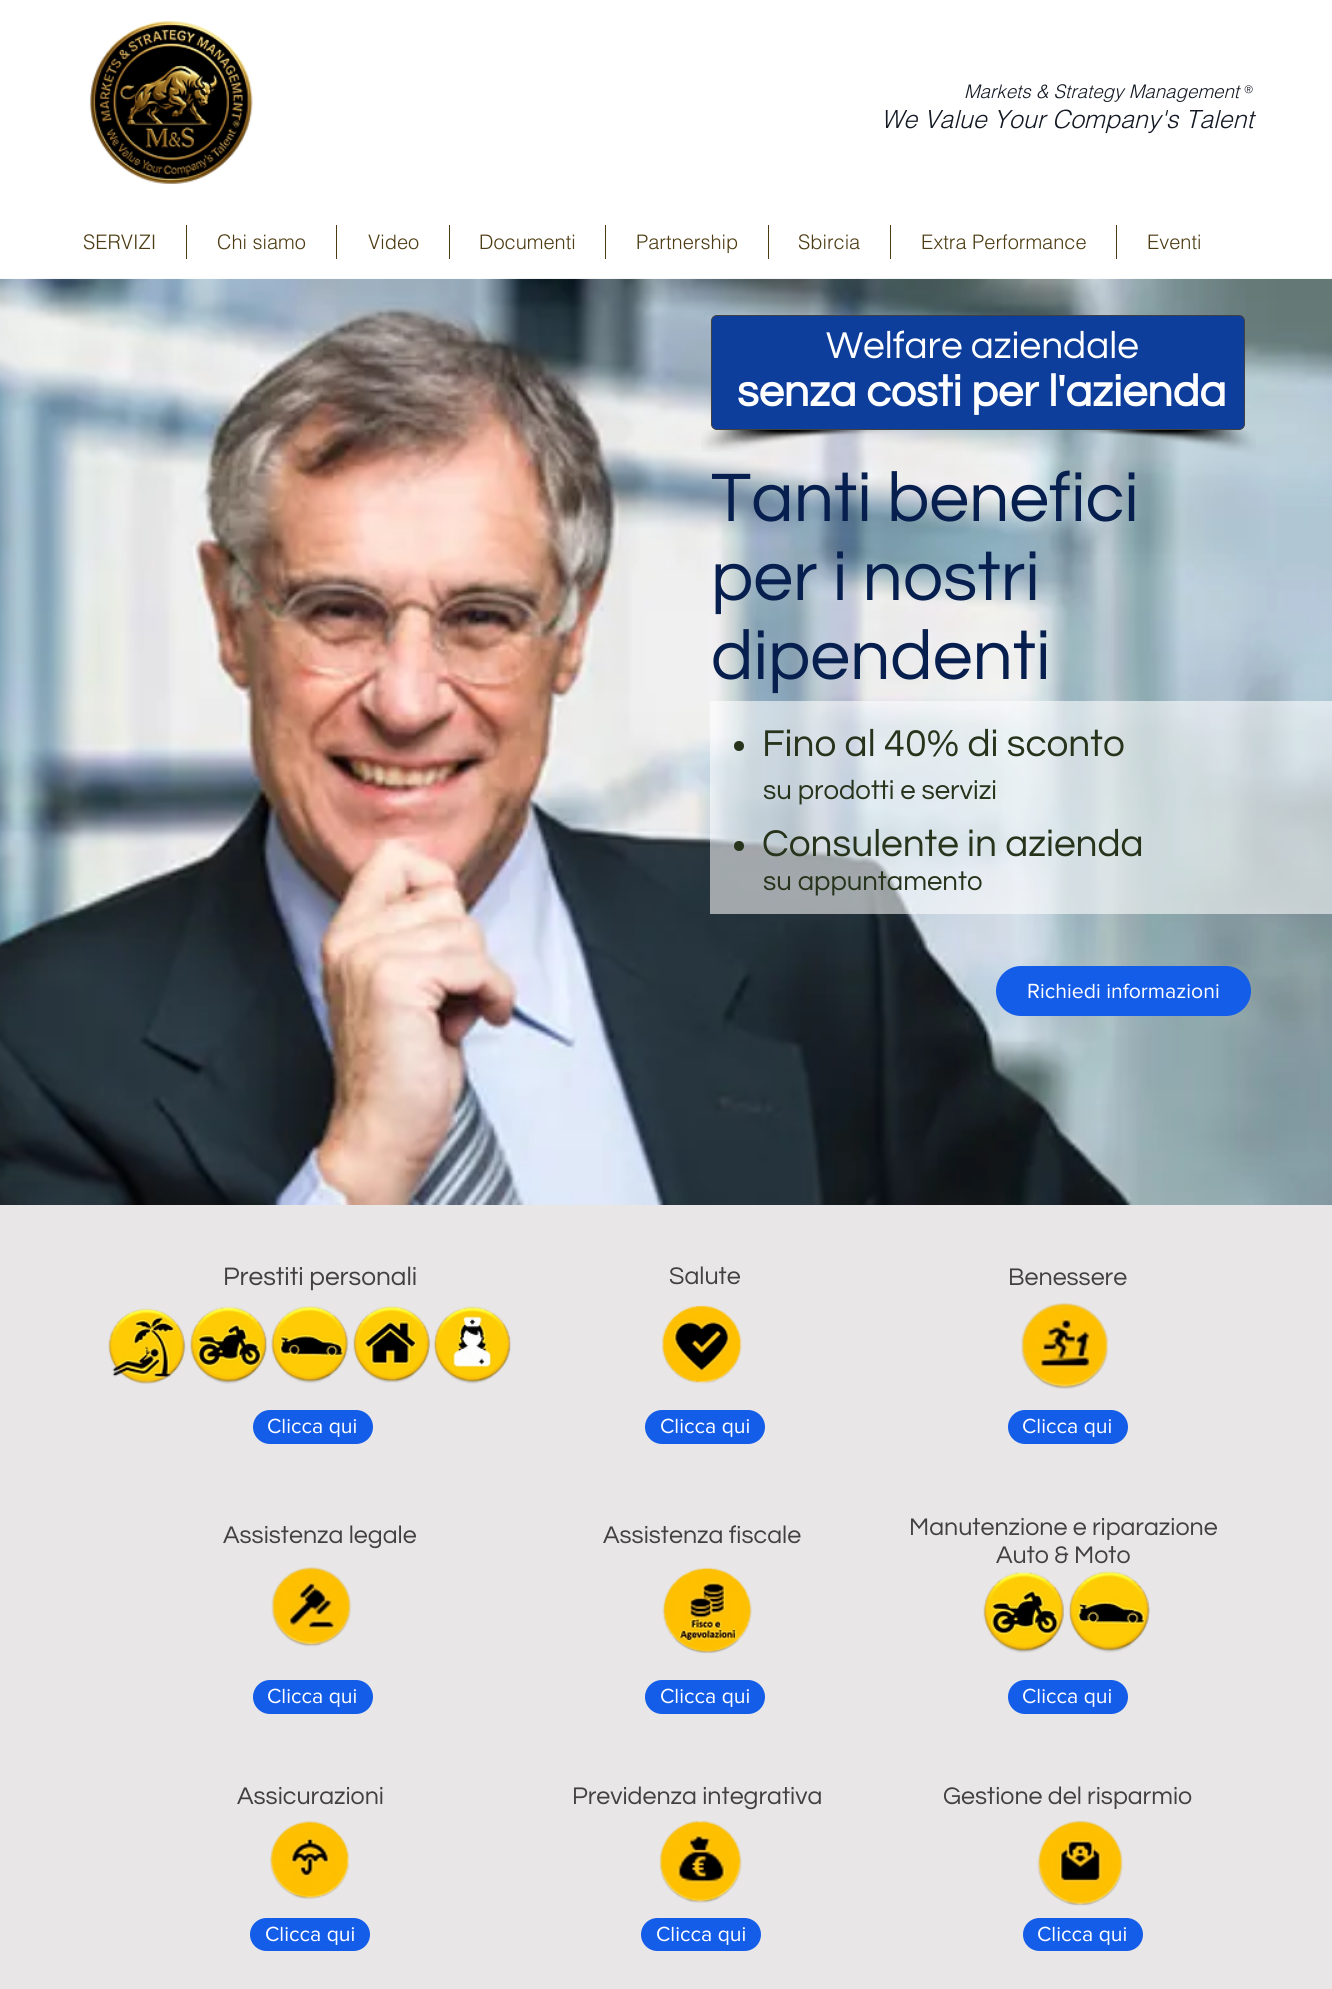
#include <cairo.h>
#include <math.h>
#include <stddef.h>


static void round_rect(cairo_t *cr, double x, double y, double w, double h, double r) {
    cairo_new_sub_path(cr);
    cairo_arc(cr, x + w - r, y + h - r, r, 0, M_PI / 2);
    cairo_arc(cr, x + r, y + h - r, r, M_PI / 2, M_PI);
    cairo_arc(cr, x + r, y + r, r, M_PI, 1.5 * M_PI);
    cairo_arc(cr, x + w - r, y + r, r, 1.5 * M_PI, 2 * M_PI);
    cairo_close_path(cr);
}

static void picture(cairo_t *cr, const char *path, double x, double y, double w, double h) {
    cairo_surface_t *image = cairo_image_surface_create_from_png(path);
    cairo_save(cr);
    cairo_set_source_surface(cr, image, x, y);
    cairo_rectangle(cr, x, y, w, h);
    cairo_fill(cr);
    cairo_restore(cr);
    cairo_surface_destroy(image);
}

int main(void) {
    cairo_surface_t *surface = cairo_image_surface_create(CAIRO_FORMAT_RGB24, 1332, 1989);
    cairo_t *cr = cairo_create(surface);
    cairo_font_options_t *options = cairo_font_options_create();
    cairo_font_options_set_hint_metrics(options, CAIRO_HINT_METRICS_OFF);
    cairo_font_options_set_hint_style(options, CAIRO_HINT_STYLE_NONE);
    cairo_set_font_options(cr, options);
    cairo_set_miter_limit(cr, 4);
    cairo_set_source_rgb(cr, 1, 1, 1);
    cairo_paint(cr);
    picture(cr, "img1.png", 89, 21, 164, 163);
    cairo_select_font_face(cr, "helvetica Light", CAIRO_FONT_SLANT_ITALIC, CAIRO_FONT_WEIGHT_NORMAL);
    cairo_set_font_size(cr, 18.75);
    cairo_set_source_rgb(cr, 0.082, 0.102, 0.141);
    cairo_move_to(cr, 964, 98);
    cairo_show_text(cr, "Markets & Strategy Management");
    cairo_select_font_face(cr, "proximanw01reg", CAIRO_FONT_SLANT_NORMAL, CAIRO_FONT_WEIGHT_NORMAL);
    cairo_move_to(cr, 1244, 98);
    cairo_show_text(cr, "®");
    cairo_select_font_face(cr, "helvetica Light", CAIRO_FONT_SLANT_ITALIC, CAIRO_FONT_WEIGHT_NORMAL);
    cairo_set_font_size(cr, 25);
    cairo_move_to(cr, 881, 128);
    cairo_show_text(cr, "We Value Your Company's Talent");
    cairo_select_font_face(cr, "helvetica Light", CAIRO_FONT_SLANT_NORMAL, CAIRO_FONT_WEIGHT_NORMAL);
    cairo_set_font_size(cr, 20);
    cairo_set_source_rgb(cr, 0.302, 0.235, 0.075);
    cairo_move_to(cr, 83, 249);
    cairo_show_text(cr, "SERVIZI");
    cairo_rectangle(cr, 186, 225, 1, 34);
    cairo_fill(cr);
    cairo_move_to(cr, 217, 249);
    cairo_show_text(cr, "Chi siamo");
    cairo_rectangle(cr, 336, 225, 1, 34);
    cairo_fill(cr);
    cairo_move_to(cr, 368, 249);
    cairo_show_text(cr, "Video");
    cairo_rectangle(cr, 449, 225, 1, 34);
    cairo_fill(cr);
    cairo_move_to(cr, 479, 249);
    cairo_show_text(cr, "Documenti");
    cairo_rectangle(cr, 605, 225, 1, 34);
    cairo_fill(cr);
    cairo_move_to(cr, 636, 249);
    cairo_show_text(cr, "Partnership");
    cairo_rectangle(cr, 768, 225, 1, 34);
    cairo_fill(cr);
    cairo_move_to(cr, 798, 249);
    cairo_show_text(cr, "Sbircia");
    cairo_rectangle(cr, 890, 225, 1, 34);
    cairo_fill(cr);
    cairo_move_to(cr, 921, 249);
    cairo_show_text(cr, "Extra Performance");
    cairo_rectangle(cr, 1116, 225, 1, 34);
    cairo_fill(cr);
    cairo_move_to(cr, 1147, 249);
    cairo_show_text(cr, "Eventi");
    picture(cr, "img2.png", 0, 278, 1332, 927);
    cairo_set_source_rgb(cr, 0.055, 0.243, 0.608);
    round_rect(cr, 711.5, 315.5, 533, 114, 5.5);
    cairo_fill_preserve(cr);
    cairo_set_source_rgb(cr, 0.255, 0.255, 0.255);
    cairo_set_line_width(cr, 1);
    cairo_stroke(cr);
    cairo_select_font_face(cr, "Questrial", CAIRO_FONT_SLANT_NORMAL, CAIRO_FONT_WEIGHT_NORMAL);
    cairo_set_font_size(cr, 38.75);
    cairo_set_source_rgb(cr, 1, 1, 1);
    cairo_move_to(cr, 826, 358);
    cairo_show_text(cr, "Welfare aziendale");
    cairo_select_font_face(cr, "Questrial", CAIRO_FONT_SLANT_NORMAL, CAIRO_FONT_WEIGHT_BOLD);
    cairo_set_font_size(cr, 45);
    cairo_move_to(cr, 737, 406);
    cairo_show_text(cr, "senza costi per l'azienda");
    picture(cr, "img3.png", 701, 430, 191, 22);
    picture(cr, "img4.png", 1071, 430, 185, 22);
    cairo_select_font_face(cr, "Questrial", CAIRO_FONT_SLANT_NORMAL, CAIRO_FONT_WEIGHT_NORMAL);
    cairo_set_font_size(cr, 71.25);
    cairo_set_source_rgb(cr, 0.027, 0.122, 0.306);
    cairo_move_to(cr, 711, 521);
    cairo_show_text(cr, "Tanti benefici");
    cairo_move_to(cr, 711, 600);
    cairo_show_text(cr, "per i nostri");
    cairo_move_to(cr, 711, 679);
    cairo_show_text(cr, "dipendenti");
    cairo_set_source_rgba(cr, 1, 1, 1, 0.57);
    cairo_rectangle(cr, 710, 701, 622, 213);
    cairo_fill(cr);
    cairo_set_source_rgb(cr, 0.153, 0.2, 0.106);
    cairo_arc(cr, 739, 746, 5, 0, 2 * M_PI);
    cairo_fill(cr);
    cairo_set_font_size(cr, 38.75);
    cairo_move_to(cr, 762, 756);
    cairo_show_text(cr, "Fino al 40% di sconto");
    cairo_set_font_size(cr, 27.5);
    cairo_move_to(cr, 763, 799);
    cairo_show_text(cr, "su prodotti e servizi");
    cairo_new_path(cr);
    cairo_arc(cr, 739, 846, 5, 0, 2 * M_PI);
    cairo_fill(cr);
    cairo_set_font_size(cr, 38.75);
    cairo_move_to(cr, 762, 856);
    cairo_show_text(cr, "Consulente in azienda");
    cairo_set_font_size(cr, 27.5);
    cairo_move_to(cr, 763, 890);
    cairo_show_text(cr, "su appuntamento");
    cairo_set_source_rgb(cr, 0.082, 0.365, 0.914);
    round_rect(cr, 996, 966, 255, 50, 25);
    cairo_fill(cr);
    cairo_select_font_face(cr, "proximanw01reg", CAIRO_FONT_SLANT_NORMAL, CAIRO_FONT_WEIGHT_NORMAL);
    cairo_set_font_size(cr, 21.25);
    cairo_set_source_rgb(cr, 1, 1, 1);
    cairo_move_to(cr, 1027, 998);
    cairo_show_text(cr, "Richiedi informazioni");
    cairo_set_source_rgb(cr, 0.91, 0.902, 0.902);
    cairo_rectangle(cr, 0, 1205, 1332, 784);
    cairo_fill(cr);
    cairo_select_font_face(cr, "Questrial", CAIRO_FONT_SLANT_NORMAL, CAIRO_FONT_WEIGHT_NORMAL);
    cairo_set_font_size(cr, 26.25);
    cairo_set_source_rgb(cr, 0.255, 0.255, 0.255);
    cairo_move_to(cr, 223, 1285);
    cairo_show_text(cr, "Prestiti personali");
    cairo_set_font_size(cr, 25);
    cairo_move_to(cr, 669, 1284);
    cairo_show_text(cr, "Salute");
    cairo_move_to(cr, 1008, 1285);
    cairo_show_text(cr, "Benessere");
    picture(cr, "img5.png", 108, 1306, 403, 78);
    picture(cr, "img6.png", 662, 1305, 80, 79);
    picture(cr, "img7.png", 1021, 1303, 88, 86);
    cairo_set_source_rgb(cr, 0.082, 0.365, 0.914);
    round_rect(cr, 253, 1410, 120, 34, 17);
    cairo_fill(cr);
    cairo_select_font_face(cr, "proximanw01reg", CAIRO_FONT_SLANT_NORMAL, CAIRO_FONT_WEIGHT_NORMAL);
    cairo_set_font_size(cr, 21.25);
    cairo_set_source_rgb(cr, 1, 1, 1);
    cairo_move_to(cr, 267, 1433);
    cairo_show_text(cr, "Clicca qui");
    cairo_set_source_rgb(cr, 0.082, 0.365, 0.914);
    round_rect(cr, 645, 1410, 120, 34, 17);
    cairo_fill(cr);
    cairo_set_source_rgb(cr, 1, 1, 1);
    cairo_move_to(cr, 660, 1433);
    cairo_show_text(cr, "Clicca qui");
    cairo_set_source_rgb(cr, 0.082, 0.365, 0.914);
    round_rect(cr, 1008, 1410, 120, 34, 17);
    cairo_fill(cr);
    cairo_set_source_rgb(cr, 1, 1, 1);
    cairo_move_to(cr, 1022, 1433);
    cairo_show_text(cr, "Clicca qui");
    cairo_select_font_face(cr, "Questrial", CAIRO_FONT_SLANT_NORMAL, CAIRO_FONT_WEIGHT_NORMAL);
    cairo_set_font_size(cr, 25);
    cairo_set_source_rgb(cr, 0.255, 0.255, 0.255);
    cairo_move_to(cr, 223, 1543);
    cairo_show_text(cr, "Assistenza legale");
    cairo_move_to(cr, 603, 1543);
    cairo_show_text(cr, "Assistenza fiscale");
    cairo_move_to(cr, 909, 1535);
    cairo_show_text(cr, "Manutenzione e riparazione");
    cairo_move_to(cr, 996, 1563);
    cairo_show_text(cr, "Auto & Moto");
    picture(cr, "img8.png", 271, 1567, 81, 80);
    picture(cr, "img9.png", 662, 1567, 90, 87);
    picture(cr, "img10.png", 983, 1571, 167, 82);
    cairo_set_source_rgb(cr, 0.082, 0.365, 0.914);
    round_rect(cr, 253, 1680, 120, 34, 17);
    cairo_fill(cr);
    cairo_select_font_face(cr, "proximanw01reg", CAIRO_FONT_SLANT_NORMAL, CAIRO_FONT_WEIGHT_NORMAL);
    cairo_set_font_size(cr, 21.25);
    cairo_set_source_rgb(cr, 1, 1, 1);
    cairo_move_to(cr, 267, 1703);
    cairo_show_text(cr, "Clicca qui");
    cairo_set_source_rgb(cr, 0.082, 0.365, 0.914);
    round_rect(cr, 645, 1680, 120, 34, 17);
    cairo_fill(cr);
    cairo_set_source_rgb(cr, 1, 1, 1);
    cairo_move_to(cr, 660, 1703);
    cairo_show_text(cr, "Clicca qui");
    cairo_set_source_rgb(cr, 0.082, 0.365, 0.914);
    round_rect(cr, 1008, 1680, 120, 34, 17);
    cairo_fill(cr);
    cairo_set_source_rgb(cr, 1, 1, 1);
    cairo_move_to(cr, 1022, 1703);
    cairo_show_text(cr, "Clicca qui");
    cairo_select_font_face(cr, "Questrial", CAIRO_FONT_SLANT_NORMAL, CAIRO_FONT_WEIGHT_NORMAL);
    cairo_set_font_size(cr, 25);
    cairo_set_source_rgb(cr, 0.255, 0.255, 0.255);
    cairo_move_to(cr, 237, 1804);
    cairo_show_text(cr, "Assicurazioni");
    cairo_move_to(cr, 572, 1804);
    cairo_show_text(cr, "Previdenza integrativa");
    cairo_move_to(cr, 943, 1804);
    cairo_show_text(cr, "Gestione del risparmio");
    picture(cr, "img11.png", 270, 1821, 79, 78);
    picture(cr, "img12.png", 659, 1821, 83, 82);
    picture(cr, "img13.png", 1037, 1821, 86, 85);
    cairo_set_source_rgb(cr, 0.082, 0.365, 0.914);
    round_rect(cr, 250, 1918, 120, 33, 16.5);
    cairo_fill(cr);
    cairo_select_font_face(cr, "proximanw01reg", CAIRO_FONT_SLANT_NORMAL, CAIRO_FONT_WEIGHT_NORMAL);
    cairo_set_font_size(cr, 21.25);
    cairo_set_source_rgb(cr, 1, 1, 1);
    cairo_move_to(cr, 265, 1941);
    cairo_show_text(cr, "Clicca qui");
    cairo_set_source_rgb(cr, 0.082, 0.365, 0.914);
    round_rect(cr, 641, 1918, 120, 33, 16.5);
    cairo_fill(cr);
    cairo_set_source_rgb(cr, 1, 1, 1);
    cairo_move_to(cr, 656, 1941);
    cairo_show_text(cr, "Clicca qui");
    cairo_set_source_rgb(cr, 0.082, 0.365, 0.914);
    round_rect(cr, 1023, 1918, 120, 33, 16.5);
    cairo_fill(cr);
    cairo_set_source_rgb(cr, 1, 1, 1);
    cairo_move_to(cr, 1037, 1941);
    cairo_show_text(cr, "Clicca qui");
    cairo_surface_write_to_png(surface, "page.png");
    cairo_font_options_destroy(options);
    cairo_destroy(cr);
    cairo_surface_destroy(surface);
    return 0;
}
